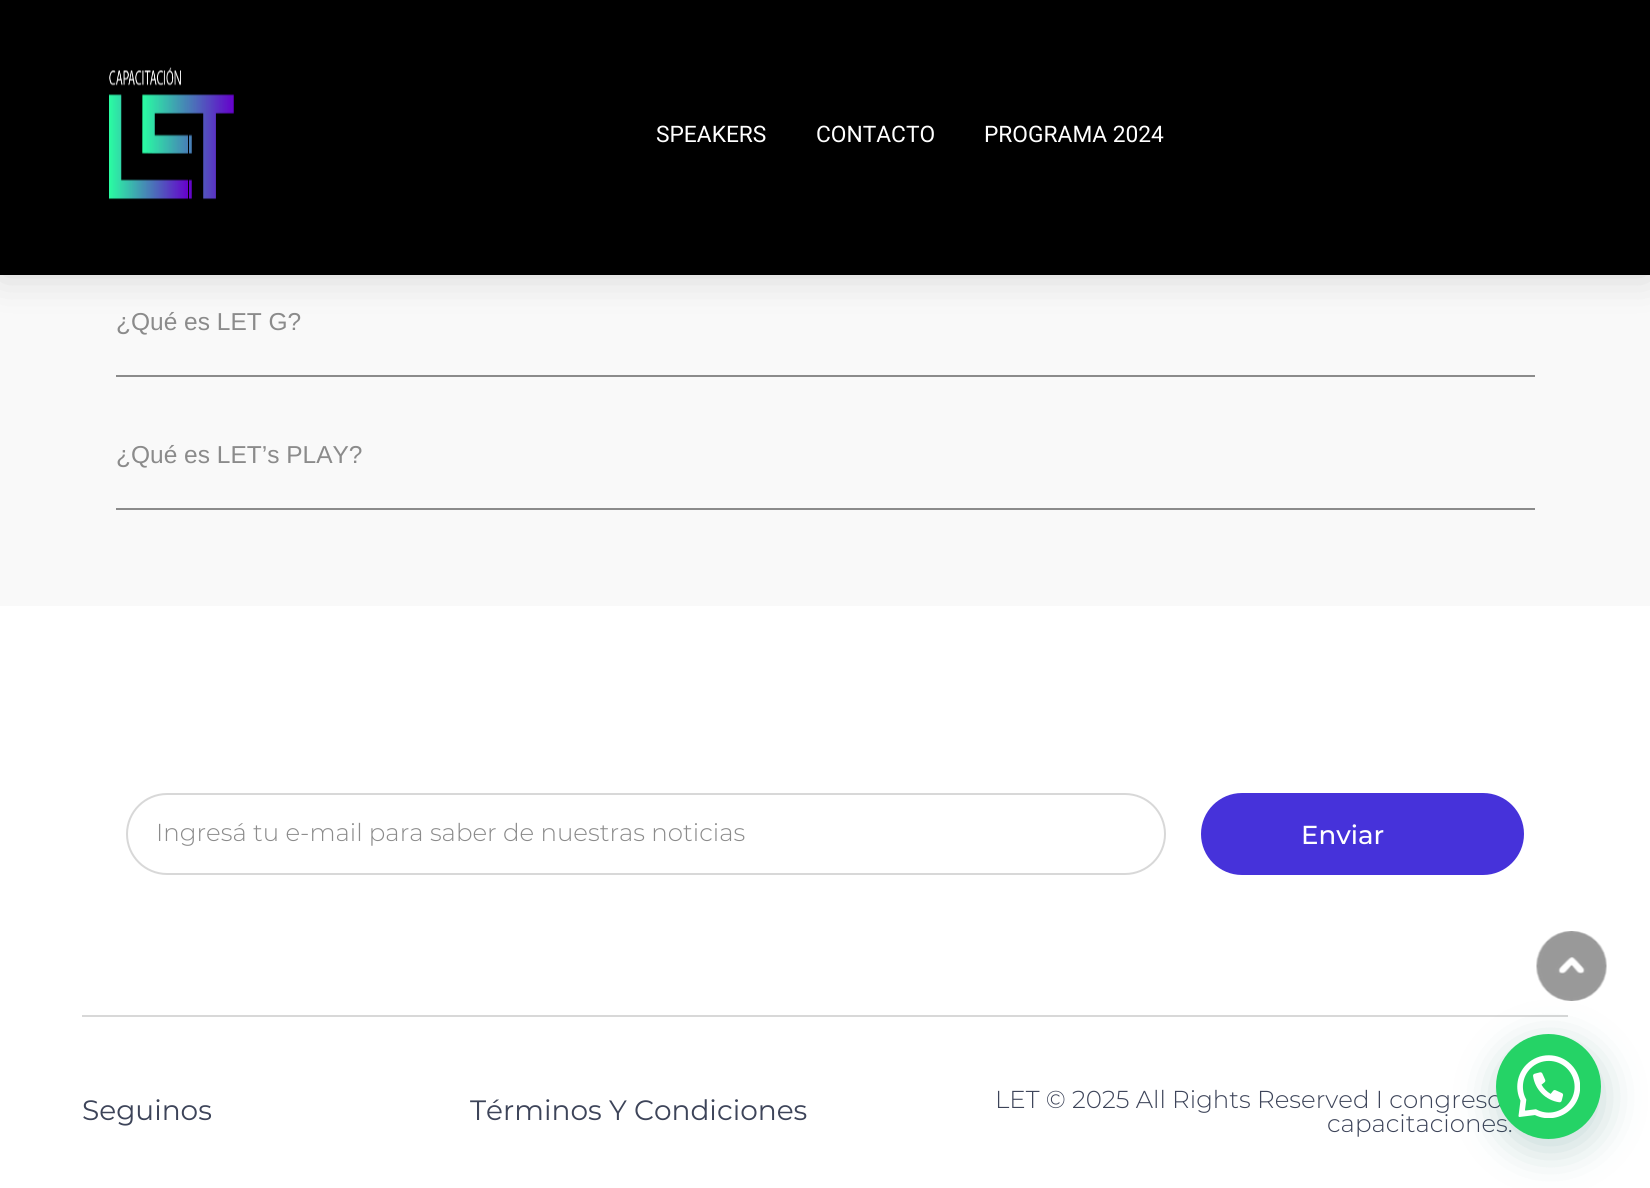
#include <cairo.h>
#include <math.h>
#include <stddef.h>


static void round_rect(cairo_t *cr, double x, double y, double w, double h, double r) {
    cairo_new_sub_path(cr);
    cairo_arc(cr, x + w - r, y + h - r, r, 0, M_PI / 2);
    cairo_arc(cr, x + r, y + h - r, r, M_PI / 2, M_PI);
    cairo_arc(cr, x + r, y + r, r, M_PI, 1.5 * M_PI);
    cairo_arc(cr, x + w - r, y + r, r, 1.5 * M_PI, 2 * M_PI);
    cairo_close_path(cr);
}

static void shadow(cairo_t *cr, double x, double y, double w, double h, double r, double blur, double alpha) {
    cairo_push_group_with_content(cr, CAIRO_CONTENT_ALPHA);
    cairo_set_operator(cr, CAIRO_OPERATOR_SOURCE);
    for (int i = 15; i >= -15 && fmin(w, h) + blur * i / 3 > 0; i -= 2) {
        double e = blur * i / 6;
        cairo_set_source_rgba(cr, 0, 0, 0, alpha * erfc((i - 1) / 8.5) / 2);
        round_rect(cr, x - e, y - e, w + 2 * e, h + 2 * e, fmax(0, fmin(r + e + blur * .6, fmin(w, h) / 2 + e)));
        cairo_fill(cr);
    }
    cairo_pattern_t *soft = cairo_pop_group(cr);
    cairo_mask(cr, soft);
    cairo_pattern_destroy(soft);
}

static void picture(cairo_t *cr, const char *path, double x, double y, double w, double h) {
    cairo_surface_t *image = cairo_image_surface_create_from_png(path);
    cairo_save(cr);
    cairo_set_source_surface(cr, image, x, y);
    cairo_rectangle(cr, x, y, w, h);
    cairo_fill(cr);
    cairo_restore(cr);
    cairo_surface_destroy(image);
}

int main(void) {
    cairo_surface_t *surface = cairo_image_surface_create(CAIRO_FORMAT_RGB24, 1650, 1188);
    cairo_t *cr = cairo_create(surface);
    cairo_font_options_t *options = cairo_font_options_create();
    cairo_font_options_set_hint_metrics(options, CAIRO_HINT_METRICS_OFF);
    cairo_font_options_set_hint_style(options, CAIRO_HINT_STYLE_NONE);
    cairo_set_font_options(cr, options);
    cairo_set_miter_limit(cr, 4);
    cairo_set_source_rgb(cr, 1, 1, 1);
    cairo_paint(cr);
    cairo_set_source_rgb(cr, 0.973, 0.973, 0.973);
    cairo_rectangle(cr, 0, 275, 1650, 331);
    cairo_fill(cr);
    cairo_set_source_rgb(cr, 0, 0, 0);
    shadow(cr, 0, -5, 1650, 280, 0, 21, 0.15);
    cairo_set_source_rgb(cr, 0, 0, 0);
    cairo_rectangle(cr, 0, 0, 1650, 275);
    cairo_fill(cr);
    picture(cr, "img1.png", 109, 67, 125, 133);
    cairo_select_font_face(cr, "Roboto", CAIRO_FONT_SLANT_NORMAL, CAIRO_FONT_WEIGHT_NORMAL);
    cairo_set_font_size(cr, 22.75);
    cairo_set_source_rgb(cr, 1, 1, 1);
    cairo_move_to(cr, 656, 142);
    cairo_show_text(cr, "SPEAKERS");
    cairo_move_to(cr, 816, 142);
    cairo_show_text(cr, "CONTACTO");
    cairo_move_to(cr, 984, 142);
    cairo_show_text(cr, "PROGRAMA 2024");
    cairo_set_source_rgb(cr, 0.545, 0.545, 0.545);
    cairo_rectangle(cr, 116, 375, 1419, 2);
    cairo_fill(cr);
    cairo_select_font_face(cr, "Liberation Sans", CAIRO_FONT_SLANT_NORMAL, CAIRO_FONT_WEIGHT_NORMAL);
    cairo_set_font_size(cr, 24.5);
    cairo_move_to(cr, 116, 330);
    cairo_show_text(cr, "¿Qué es LET G?");
    cairo_rectangle(cr, 116, 508, 1419, 2);
    cairo_fill(cr);
    cairo_move_to(cr, 116, 463);
    cairo_show_text(cr, "¿Qué es LET’s PLAY?");
    round_rect(cr, 127, 794, 1038, 80, 40);
    cairo_set_source_rgb(cr, 0.847, 0.847, 0.847);
    cairo_stroke(cr);
    cairo_select_font_face(cr, "Montserrat Light", CAIRO_FONT_SLANT_NORMAL, CAIRO_FONT_WEIGHT_NORMAL);
    cairo_set_source_rgb(cr, 0.545, 0.545, 0.545);
    cairo_move_to(cr, 156, 841);
    cairo_show_text(cr, "Ingresá tu e-mail para saber de nuestras noticias");
    cairo_set_source_rgb(cr, 0.275, 0.196, 0.855);
    round_rect(cr, 1201, 793, 323, 82, 41);
    cairo_fill(cr);
    cairo_select_font_face(cr, "Montserrat Medium", CAIRO_FONT_SLANT_NORMAL, CAIRO_FONT_WEIGHT_NORMAL);
    cairo_set_font_size(cr, 26);
    cairo_set_source_rgb(cr, 1, 1, 1);
    cairo_move_to(cr, 1301, 844);
    cairo_show_text(cr, "Enviar");
    cairo_set_source_rgb(cr, 0.847, 0.847, 0.847);
    cairo_rectangle(cr, 82, 1015, 1486, 2);
    cairo_fill(cr);
    cairo_select_font_face(cr, "Montserrat", CAIRO_FONT_SLANT_NORMAL, CAIRO_FONT_WEIGHT_NORMAL);
    cairo_set_font_size(cr, 28);
    cairo_set_source_rgb(cr, 0.239, 0.267, 0.349);
    cairo_move_to(cr, 82, 1120);
    cairo_show_text(cr, "Seguinos");
    cairo_move_to(cr, 470, 1120);
    cairo_show_text(cr, "Términos Y Condiciones");
    cairo_select_font_face(cr, "Montserrat Light", CAIRO_FONT_SLANT_NORMAL, CAIRO_FONT_WEIGHT_NORMAL);
    cairo_set_font_size(cr, 24.5);
    cairo_move_to(cr, 995, 1108);
    cairo_show_text(cr, "LET © 2025 All Rights Reserved I congreso");
    cairo_move_to(cr, 1327, 1132);
    cairo_show_text(cr, "capacitaciones.");
    cairo_set_source_rgb(cr, 0.027, 0.369, 0.329);
    shadow(cr, 1498, 1045, 105, 105, 52.5, 21, 0.24);
    picture(cr, "img2.png", 1536, 931, 71, 70);
    cairo_set_source_rgb(cr, 0.145, 0.827, 0.4);
    cairo_arc(cr, 1548.5, 1086.5, 52.5, 0, 2 * M_PI);
    cairo_fill(cr);
    picture(cr, "img3.png", 1517, 1055, 63, 63);
    cairo_surface_write_to_png(surface, "page.png");
    cairo_font_options_destroy(options);
    cairo_destroy(cr);
    cairo_surface_destroy(surface);
    return 0;
}
